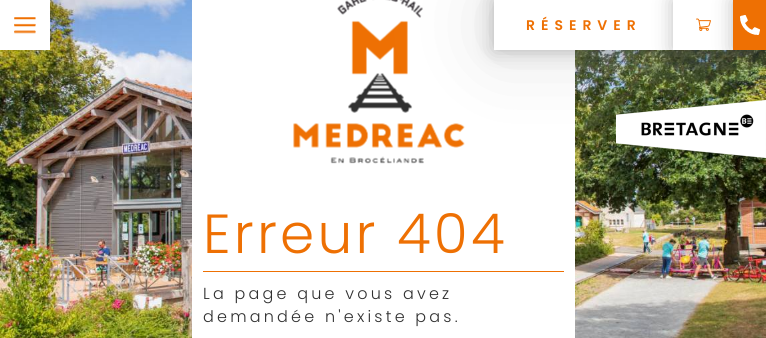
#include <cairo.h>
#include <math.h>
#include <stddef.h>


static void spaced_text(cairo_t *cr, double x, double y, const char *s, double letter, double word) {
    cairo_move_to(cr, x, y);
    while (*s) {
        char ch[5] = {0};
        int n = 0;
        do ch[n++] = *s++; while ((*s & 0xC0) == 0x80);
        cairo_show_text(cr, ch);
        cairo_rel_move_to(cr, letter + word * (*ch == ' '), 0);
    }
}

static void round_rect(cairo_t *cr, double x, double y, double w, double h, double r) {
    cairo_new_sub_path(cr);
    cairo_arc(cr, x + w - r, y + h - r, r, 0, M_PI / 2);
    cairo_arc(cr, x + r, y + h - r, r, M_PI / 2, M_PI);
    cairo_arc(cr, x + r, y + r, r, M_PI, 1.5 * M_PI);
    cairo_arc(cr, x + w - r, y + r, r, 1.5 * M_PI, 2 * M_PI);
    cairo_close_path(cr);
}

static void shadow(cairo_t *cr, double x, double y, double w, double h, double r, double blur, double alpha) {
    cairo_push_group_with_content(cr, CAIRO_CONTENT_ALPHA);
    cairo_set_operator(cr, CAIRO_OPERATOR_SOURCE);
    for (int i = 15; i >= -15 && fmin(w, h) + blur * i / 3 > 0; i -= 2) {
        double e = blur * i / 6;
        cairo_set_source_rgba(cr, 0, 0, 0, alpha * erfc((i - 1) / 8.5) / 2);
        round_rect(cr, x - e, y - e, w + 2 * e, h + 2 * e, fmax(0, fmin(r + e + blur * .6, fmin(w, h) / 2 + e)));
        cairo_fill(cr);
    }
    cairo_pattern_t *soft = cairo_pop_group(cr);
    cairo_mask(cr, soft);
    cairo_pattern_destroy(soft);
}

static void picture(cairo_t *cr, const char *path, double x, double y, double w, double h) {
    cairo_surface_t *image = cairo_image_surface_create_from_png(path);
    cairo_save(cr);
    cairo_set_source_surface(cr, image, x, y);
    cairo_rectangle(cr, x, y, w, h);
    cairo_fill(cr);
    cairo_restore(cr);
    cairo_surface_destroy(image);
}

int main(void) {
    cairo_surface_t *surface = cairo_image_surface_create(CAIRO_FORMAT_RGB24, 766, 338);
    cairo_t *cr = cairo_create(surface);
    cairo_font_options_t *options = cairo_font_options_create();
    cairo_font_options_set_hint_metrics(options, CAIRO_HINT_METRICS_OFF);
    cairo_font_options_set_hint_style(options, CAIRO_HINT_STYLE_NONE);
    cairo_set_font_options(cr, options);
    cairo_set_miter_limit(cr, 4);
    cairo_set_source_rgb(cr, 1, 1, 1);
    cairo_paint(cr);
    picture(cr, "img5.png", 0, 0, 766, 338);
    cairo_set_source_rgb(cr, 0, 0, 0);
    shadow(cr, 0, 0, 50, 50, 0, 35, 0.16);
    cairo_set_source_rgb(cr, 1, 1, 1);
    cairo_rectangle(cr, 0, 0, 50, 50);
    cairo_fill(cr);
    picture(cr, "img1.png", 14, 17, 22, 17);
    cairo_rectangle(cr, 192, 0, 383, 338);
    cairo_fill(cr);
    picture(cr, "img6.png", 293, 0, 172, 164);
    cairo_set_source_rgb(cr, 0.757, 0.757, 0.757);
    shadow(cr, 494, 0, 272, 50, 0, 40, 0.51);
    cairo_set_source_rgb(cr, 0, 0, 0);
    shadow(cr, 494, 0, 179, 50, 0, 10, 0.25);
    cairo_set_source_rgb(cr, 1, 1, 1);
    cairo_rectangle(cr, 494, 0, 179, 50);
    cairo_fill(cr);
    cairo_set_source_rgb(cr, 0, 0, 0);
    shadow(cr, 673, 0, 60, 50, 0, 10, 0.25);
    cairo_set_source_rgb(cr, 1, 1, 1);
    cairo_rectangle(cr, 673, 0, 60, 50);
    cairo_fill(cr);
    cairo_set_source_rgb(cr, 0, 0, 0);
    shadow(cr, 733, 0, 33, 50, 0, 10, 0.25);
    picture(cr, "img2.png", 696, 18, 15, 13);
    cairo_select_font_face(cr, "Poppins SemiBold", CAIRO_FONT_SLANT_NORMAL, CAIRO_FONT_WEIGHT_NORMAL);
    cairo_set_font_size(cr, 14);
    cairo_set_source_rgb(cr, 0.933, 0.439, 0.012);
    spaced_text(cr, 526, 30, "RÉSERVER", 6, 0);
    cairo_rectangle(cr, 733, 0, 33, 50);
    cairo_fill(cr);
    picture(cr, "img3.png", 740, 15, 20, 20);
    picture(cr, "img4.png", 616, 100, 150, 58);
    cairo_rectangle(cr, 203, 271, 361, 1);
    cairo_fill(cr);
    cairo_select_font_face(cr, "Poppins Light", CAIRO_FONT_SLANT_NORMAL, CAIRO_FONT_WEIGHT_NORMAL);
    cairo_set_font_size(cr, 55);
    spaced_text(cr, 203, 253, "Erreur 404", 3.2, 0);
    cairo_set_font_size(cr, 16);
    cairo_set_source_rgb(cr, 0.188, 0.188, 0.188);
    spaced_text(cr, 203, 299, "La page que vous avez", 3.2, 0);
    spaced_text(cr, 203, 322, "demandée n'existe pas.", 3.2, 0);
    cairo_surface_write_to_png(surface, "page.png");
    cairo_font_options_destroy(options);
    cairo_destroy(cr);
    cairo_surface_destroy(surface);
    return 0;
}
